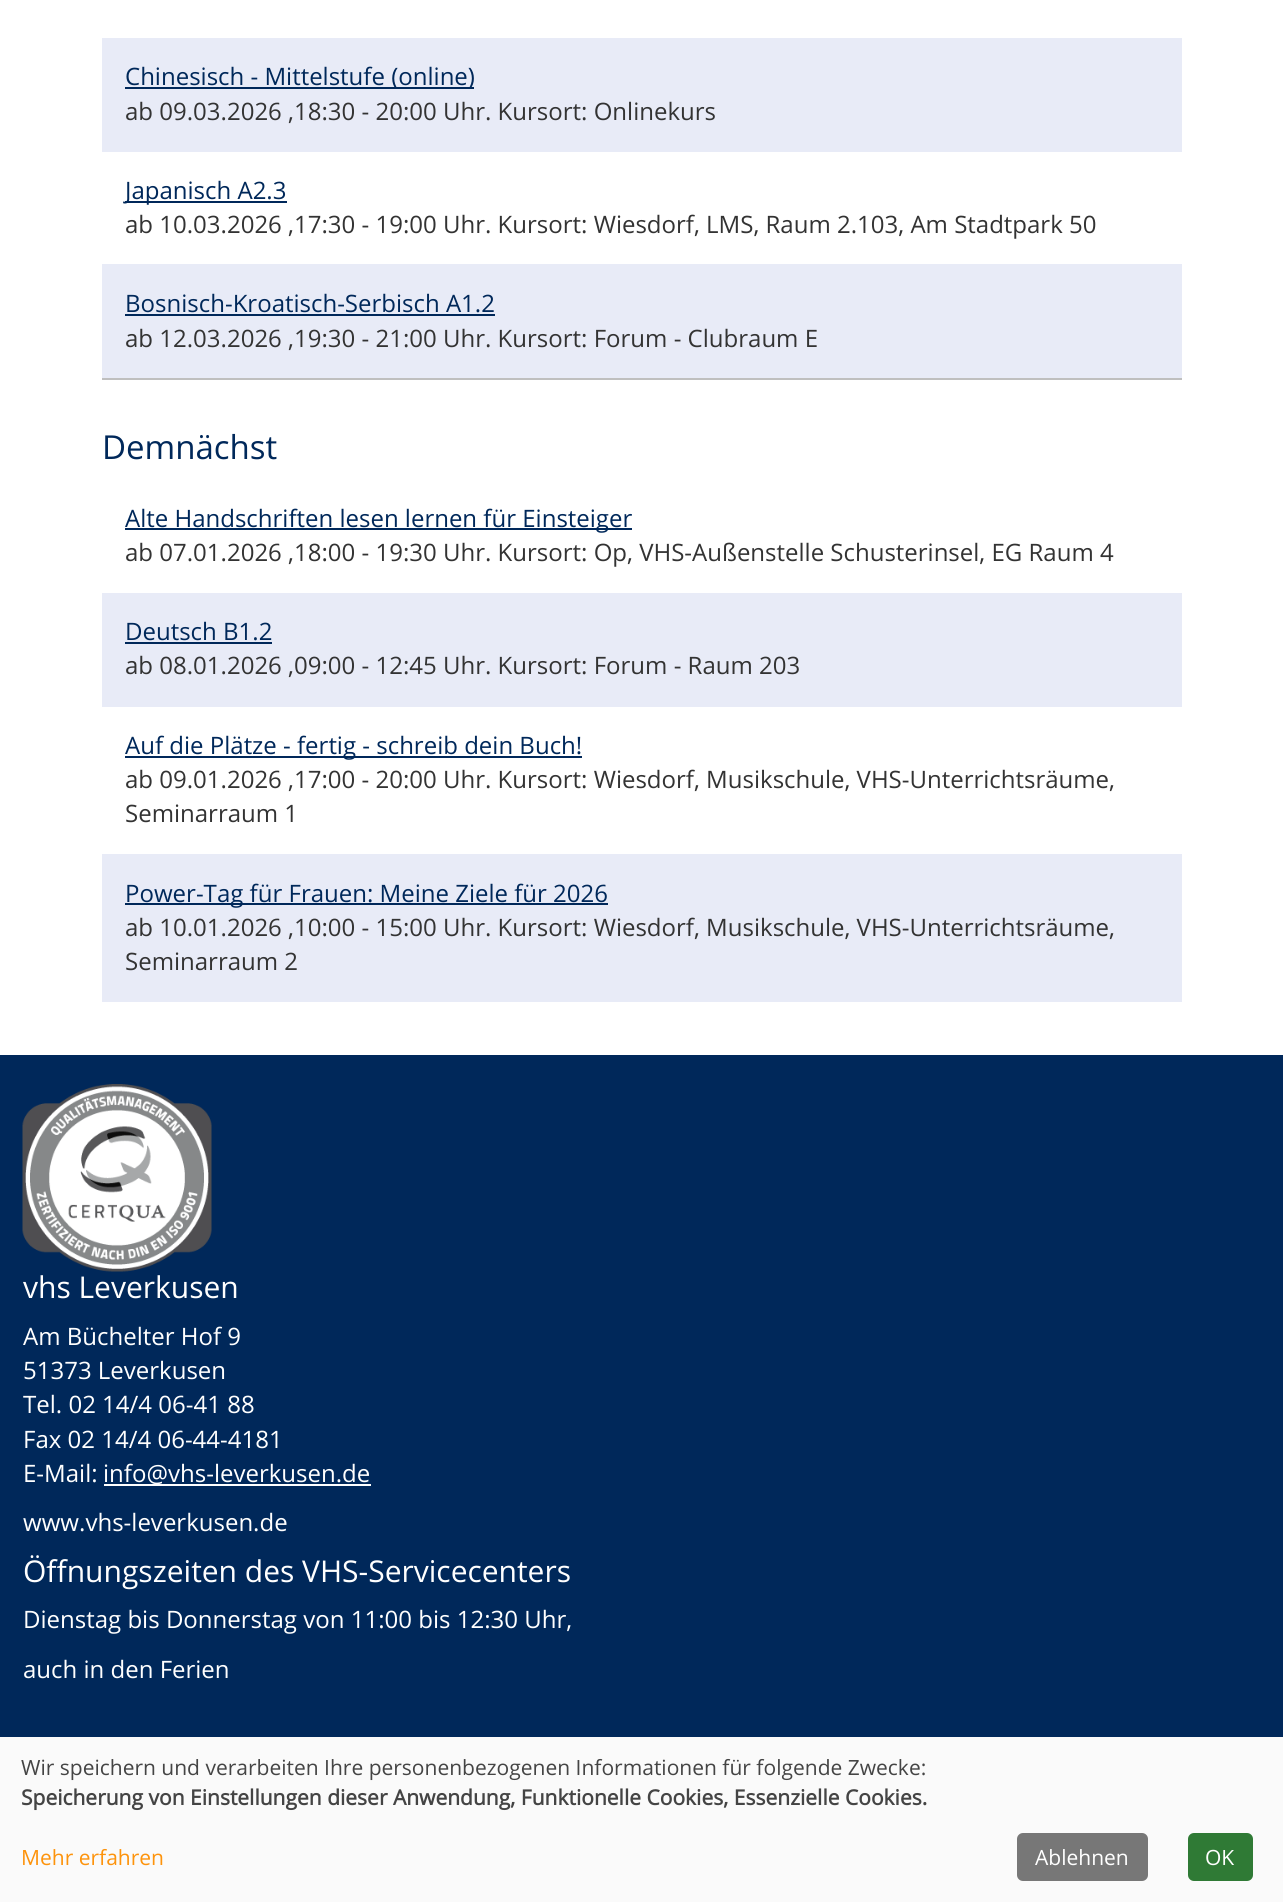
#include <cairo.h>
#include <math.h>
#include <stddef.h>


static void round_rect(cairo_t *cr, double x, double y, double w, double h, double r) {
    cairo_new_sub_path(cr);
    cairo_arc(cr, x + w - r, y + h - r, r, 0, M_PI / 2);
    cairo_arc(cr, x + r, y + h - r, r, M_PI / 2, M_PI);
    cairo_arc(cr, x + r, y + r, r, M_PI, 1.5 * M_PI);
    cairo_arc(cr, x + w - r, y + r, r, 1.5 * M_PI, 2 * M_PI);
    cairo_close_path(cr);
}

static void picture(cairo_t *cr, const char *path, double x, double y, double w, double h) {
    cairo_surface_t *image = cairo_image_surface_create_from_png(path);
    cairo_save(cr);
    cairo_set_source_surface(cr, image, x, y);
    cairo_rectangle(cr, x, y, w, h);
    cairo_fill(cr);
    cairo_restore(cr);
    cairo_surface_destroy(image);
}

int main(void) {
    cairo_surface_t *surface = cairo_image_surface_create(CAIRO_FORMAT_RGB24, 1283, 1902);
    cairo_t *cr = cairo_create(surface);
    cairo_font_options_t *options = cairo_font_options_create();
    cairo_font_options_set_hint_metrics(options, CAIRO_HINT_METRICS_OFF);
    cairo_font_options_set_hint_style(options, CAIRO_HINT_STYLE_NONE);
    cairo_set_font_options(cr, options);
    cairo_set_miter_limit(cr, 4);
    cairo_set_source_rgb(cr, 1, 1, 1);
    cairo_paint(cr);
    cairo_set_source_rgb(cr, 0.91, 0.918, 0.965);
    cairo_rectangle(cr, 102, 38, 1080, 114);
    cairo_fill(cr);
    cairo_set_source_rgb(cr, 0, 0.157, 0.353);
    cairo_rectangle(cr, 125, 87, 349, 2);
    cairo_fill(cr);
    cairo_select_font_face(cr, "Open Sans", CAIRO_FONT_SLANT_NORMAL, CAIRO_FONT_WEIGHT_NORMAL);
    cairo_set_font_size(cr, 24);
    cairo_move_to(cr, 125, 85);
    cairo_show_text(cr, "Chinesisch - Mittelstufe (online)");
    cairo_set_source_rgb(cr, 0.2, 0.2, 0.2);
    cairo_move_to(cr, 125, 120);
    cairo_show_text(cr, "ab 09.03.2026 ,18:30 - 20:00 Uhr. Kursort: Onlinekurs");
    cairo_set_source_rgb(cr, 0, 0.157, 0.353);
    cairo_rectangle(cr, 125, 201, 162, 2);
    cairo_fill(cr);
    cairo_move_to(cr, 125, 199);
    cairo_show_text(cr, "Japanisch A2.3");
    cairo_set_source_rgb(cr, 0.2, 0.2, 0.2);
    cairo_move_to(cr, 125, 233);
    cairo_show_text(cr, "ab 10.03.2026 ,17:30 - 19:00 Uhr. Kursort: Wiesdorf, LMS, Raum 2.103, Am Stadtpark 50");
    cairo_set_source_rgb(cr, 0.91, 0.918, 0.965);
    cairo_rectangle(cr, 102, 264, 1080, 114);
    cairo_fill(cr);
    cairo_set_source_rgb(cr, 0, 0.157, 0.353);
    cairo_move_to(cr, 125, 312);
    cairo_show_text(cr, "Bosnisch-Kroatisch-Serbisch A1.2");
    cairo_rectangle(cr, 125, 314, 370, 2);
    cairo_fill(cr);
    cairo_set_source_rgb(cr, 0.2, 0.2, 0.2);
    cairo_move_to(cr, 125, 347);
    cairo_show_text(cr, "ab 12.03.2026 ,19:30 - 21:00 Uhr. Kursort: Forum - Clubraum E");
    cairo_set_source_rgb(cr, 0.749, 0.749, 0.749);
    cairo_rectangle(cr, 102, 378, 1080, 2);
    cairo_fill(cr);
    cairo_set_font_size(cr, 33);
    cairo_set_source_rgb(cr, 0, 0.157, 0.353);
    cairo_move_to(cr, 102, 459);
    cairo_show_text(cr, "Demnächst");
    cairo_rectangle(cr, 125, 528, 507, 2);
    cairo_fill(cr);
    cairo_set_font_size(cr, 24);
    cairo_move_to(cr, 125, 527);
    cairo_show_text(cr, "Alte Handschriften lesen lernen für Einsteiger");
    cairo_set_source_rgb(cr, 0.2, 0.2, 0.2);
    cairo_move_to(cr, 125, 561);
    cairo_show_text(cr, "ab 07.01.2026 ,18:00 - 19:30 Uhr. Kursort: Op, VHS-Außenstelle Schusterinsel, EG Raum 4");
    cairo_set_source_rgb(cr, 0.91, 0.918, 0.965);
    cairo_rectangle(cr, 102, 593, 1080, 114);
    cairo_fill(cr);
    cairo_set_source_rgb(cr, 0, 0.157, 0.353);
    cairo_move_to(cr, 125, 640);
    cairo_show_text(cr, "Deutsch B1.2");
    cairo_rectangle(cr, 125, 642, 147, 2);
    cairo_fill(cr);
    cairo_set_source_rgb(cr, 0.2, 0.2, 0.2);
    cairo_move_to(cr, 125, 674);
    cairo_show_text(cr, "ab 08.01.2026 ,09:00 - 12:45 Uhr. Kursort: Forum - Raum 203");
    cairo_set_source_rgb(cr, 0, 0.157, 0.353);
    cairo_rectangle(cr, 125, 756, 457, 2);
    cairo_fill(cr);
    cairo_move_to(cr, 125, 754);
    cairo_show_text(cr, "Auf die Plätze - fertig - schreib dein Buch!");
    cairo_set_source_rgb(cr, 0.2, 0.2, 0.2);
    cairo_move_to(cr, 125, 788);
    cairo_show_text(cr, "ab 09.01.2026 ,17:00 - 20:00 Uhr. Kursort: Wiesdorf, Musikschule, VHS-Unterrichtsräume,");
    cairo_move_to(cr, 125, 822);
    cairo_show_text(cr, "Seminarraum 1");
    cairo_set_source_rgb(cr, 0.91, 0.918, 0.965);
    cairo_rectangle(cr, 102, 854, 1080, 148);
    cairo_fill(cr);
    cairo_set_source_rgb(cr, 0, 0.157, 0.353);
    cairo_rectangle(cr, 125, 903, 483, 2);
    cairo_fill(cr);
    cairo_move_to(cr, 125, 902);
    cairo_show_text(cr, "Power-Tag für Frauen: Meine Ziele für 2026");
    cairo_set_source_rgb(cr, 0.2, 0.2, 0.2);
    cairo_move_to(cr, 125, 936);
    cairo_show_text(cr, "ab 10.01.2026 ,10:00 - 15:00 Uhr. Kursort: Wiesdorf, Musikschule, VHS-Unterrichtsräume,");
    cairo_move_to(cr, 125, 970);
    cairo_show_text(cr, "Seminarraum 2");
    cairo_set_source_rgb(cr, 0, 0.157, 0.353);
    cairo_rectangle(cr, 0, 1055, 1283, 682);
    cairo_fill(cr);
    picture(cr, "img1.png", 22, 1084, 190, 188);
    cairo_set_font_size(cr, 30);
    cairo_set_source_rgb(cr, 1, 1, 1);
    cairo_move_to(cr, 23, 1298);
    cairo_show_text(cr, "vhs Leverkusen");
    cairo_set_font_size(cr, 24);
    cairo_move_to(cr, 23, 1345);
    cairo_show_text(cr, "Am Büchelter Hof 9");
    cairo_move_to(cr, 23, 1379);
    cairo_show_text(cr, "51373 Leverkusen");
    cairo_move_to(cr, 23, 1413);
    cairo_show_text(cr, "Tel. 02 14/4 06-41 88");
    cairo_move_to(cr, 23, 1448);
    cairo_show_text(cr, "Fax 02 14/4 06-44-4181");
    cairo_move_to(cr, 23, 1482);
    cairo_show_text(cr, "E-Mail:");
    cairo_rectangle(cr, 104, 1484, 267, 2);
    cairo_fill(cr);
    cairo_move_to(cr, 103, 1482);
    cairo_show_text(cr, "info@vhs-leverkusen.de");
    cairo_move_to(cr, 23, 1531);
    cairo_show_text(cr, "www.vhs-leverkusen.de");
    cairo_set_font_size(cr, 30);
    cairo_move_to(cr, 23, 1582);
    cairo_show_text(cr, "Öffnungszeiten des VHS-Servicecenters");
    cairo_set_font_size(cr, 24);
    cairo_move_to(cr, 23, 1628);
    cairo_show_text(cr, "Dienstag bis Donnerstag von 11:00 bis 12:30 Uhr,");
    cairo_move_to(cr, 23, 1678);
    cairo_show_text(cr, "auch in den Ferien");
    cairo_set_source_rgb(cr, 0.98, 0.98, 0.98);
    cairo_rectangle(cr, 0, 1737, 1283, 165);
    cairo_fill(cr);
    cairo_set_font_size(cr, 21);
    cairo_set_source_rgb(cr, 0.267, 0.267, 0.267);
    cairo_move_to(cr, 21, 1775);
    cairo_show_text(cr, "Wir speichern und verarbeiten Ihre personenbezogenen Informationen für folgende Zwecke:");
    cairo_select_font_face(cr, "Open Sans", CAIRO_FONT_SLANT_NORMAL, CAIRO_FONT_WEIGHT_BOLD);
    cairo_move_to(cr, 21, 1805);
    cairo_show_text(cr, "Speicherung von Einstellungen dieser Anwendung, Funktionelle Cookies, Essenzielle Cookies.");
    cairo_select_font_face(cr, "Open Sans", CAIRO_FONT_SLANT_NORMAL, CAIRO_FONT_WEIGHT_NORMAL);
    cairo_set_source_rgb(cr, 0.992, 0.576, 0.047);
    cairo_move_to(cr, 21, 1865);
    cairo_show_text(cr, "Mehr erfahren");
    cairo_set_source_rgb(cr, 0.467, 0.467, 0.467);
    round_rect(cr, 1017, 1833, 131, 48, 6);
    cairo_fill(cr);
    cairo_set_source_rgb(cr, 1, 1, 1);
    cairo_move_to(cr, 1035, 1865);
    cairo_show_text(cr, "Ablehnen");
    cairo_set_source_rgb(cr, 0.184, 0.478, 0.208);
    round_rect(cr, 1188, 1833, 65, 48, 6);
    cairo_fill(cr);
    cairo_set_source_rgb(cr, 1, 1, 1);
    cairo_move_to(cr, 1205, 1865);
    cairo_show_text(cr, "OK");
    cairo_surface_write_to_png(surface, "page.png");
    cairo_font_options_destroy(options);
    cairo_destroy(cr);
    cairo_surface_destroy(surface);
    return 0;
}
